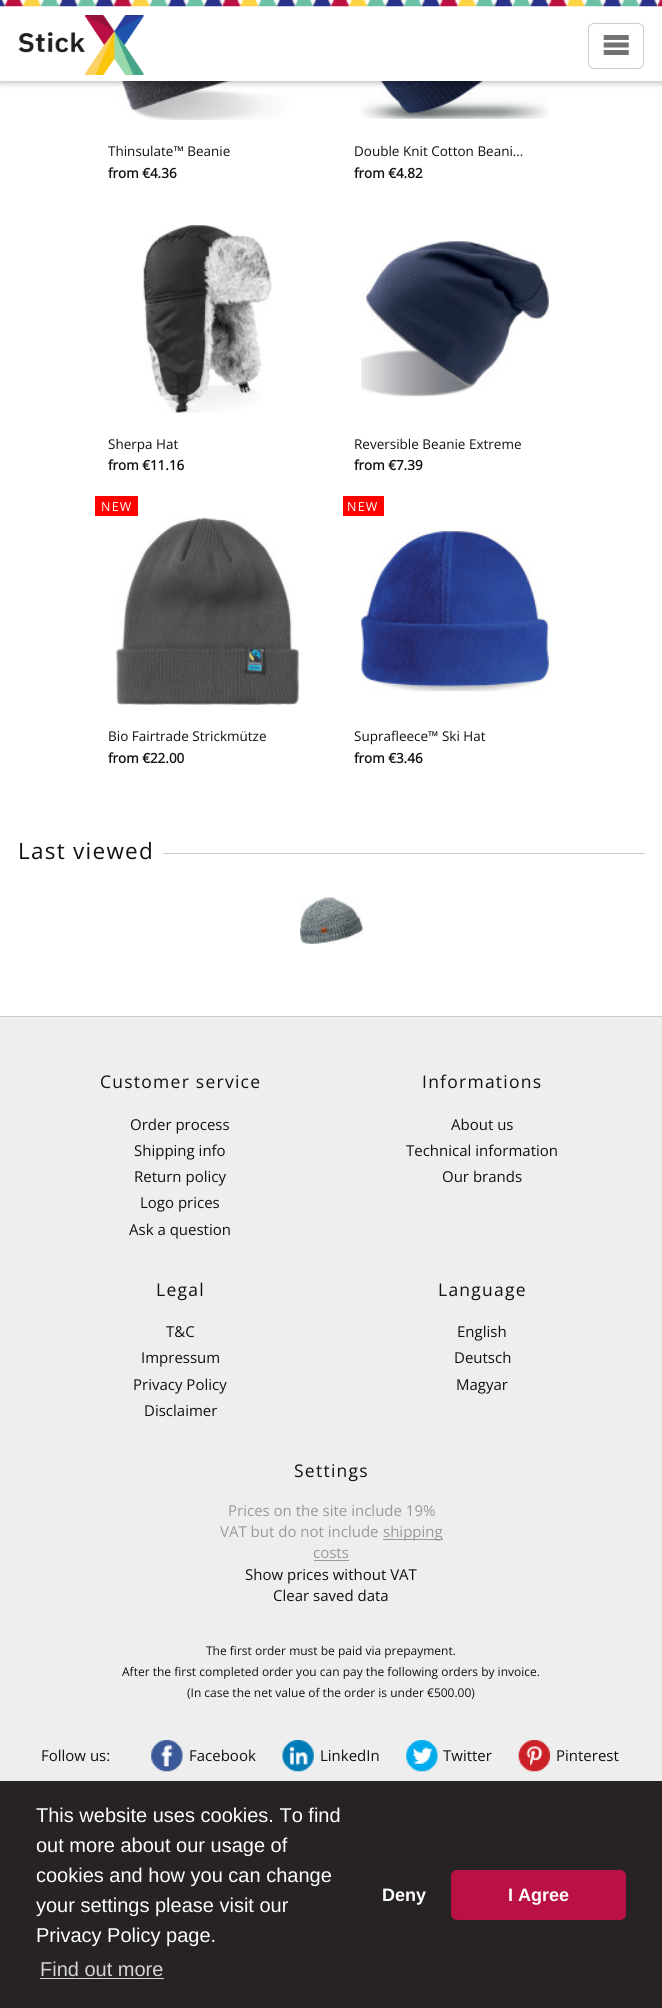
#include <cairo.h>
#include <math.h>
#include <stddef.h>


static void spaced_text(cairo_t *cr, double x, double y, const char *s, double letter, double word) {
    cairo_move_to(cr, x, y);
    while (*s) {
        char ch[5] = {0};
        int n = 0;
        do ch[n++] = *s++; while ((*s & 0xC0) == 0x80);
        cairo_show_text(cr, ch);
        cairo_rel_move_to(cr, letter + word * (*ch == ' '), 0);
    }
}

static void round_rect(cairo_t *cr, double x, double y, double w, double h, double r) {
    cairo_new_sub_path(cr);
    cairo_arc(cr, x + w - r, y + h - r, r, 0, M_PI / 2);
    cairo_arc(cr, x + r, y + h - r, r, M_PI / 2, M_PI);
    cairo_arc(cr, x + r, y + r, r, M_PI, 1.5 * M_PI);
    cairo_arc(cr, x + w - r, y + r, r, 1.5 * M_PI, 2 * M_PI);
    cairo_close_path(cr);
}

static void shadow(cairo_t *cr, double x, double y, double w, double h, double r, double blur, double alpha) {
    cairo_push_group_with_content(cr, CAIRO_CONTENT_ALPHA);
    cairo_set_operator(cr, CAIRO_OPERATOR_SOURCE);
    for (int i = 15; i >= -15 && fmin(w, h) + blur * i / 3 > 0; i -= 2) {
        double e = blur * i / 6;
        cairo_set_source_rgba(cr, 0, 0, 0, alpha * erfc((i - 1) / 8.5) / 2);
        round_rect(cr, x - e, y - e, w + 2 * e, h + 2 * e, fmax(0, fmin(r + e + blur * .6, fmin(w, h) / 2 + e)));
        cairo_fill(cr);
    }
    cairo_pattern_t *soft = cairo_pop_group(cr);
    cairo_mask(cr, soft);
    cairo_pattern_destroy(soft);
}

static void picture(cairo_t *cr, const char *path, double x, double y, double w, double h) {
    cairo_surface_t *image = cairo_image_surface_create_from_png(path);
    cairo_save(cr);
    cairo_set_source_surface(cr, image, x, y);
    cairo_rectangle(cr, x, y, w, h);
    cairo_fill(cr);
    cairo_restore(cr);
    cairo_surface_destroy(image);
}

int main(void) {
    cairo_surface_t *surface = cairo_image_surface_create(CAIRO_FORMAT_RGB24, 662, 2008);
    cairo_t *cr = cairo_create(surface);
    cairo_font_options_t *options = cairo_font_options_create();
    cairo_font_options_set_hint_metrics(options, CAIRO_HINT_METRICS_OFF);
    cairo_font_options_set_hint_style(options, CAIRO_HINT_STYLE_NONE);
    cairo_set_font_options(cr, options);
    cairo_set_miter_limit(cr, 4);
    cairo_set_source_rgb(cr, 1, 1, 1);
    cairo_paint(cr);
    picture(cr, "img4.png", 116, 81, 183, 39);
    picture(cr, "img5.png", 361, 81, 188, 38);
    cairo_set_source_rgb(cr, 0, 0, 0);
    shadow(cr, 0, 1, 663, 82, 0, 3, 0.25);
    cairo_set_source_rgb(cr, 1, 1, 1);
    cairo_rectangle(cr, 0, 6, 662, 75);
    cairo_fill(cr);
    picture(cr, "img1.png", 0, 0, 662, 7);
    picture(cr, "img2.png", 18, 15, 126, 60);
    round_rect(cr, 588.5, 23.5, 55, 45, 5.5);
    cairo_set_source_rgb(cr, 0.8, 0.8, 0.8);
    cairo_set_line_width(cr, 1);
    cairo_stroke(cr);
    picture(cr, "img3.png", 603, 35, 26, 20);
    cairo_select_font_face(cr, "Open Sans", CAIRO_FONT_SLANT_NORMAL, CAIRO_FONT_WEIGHT_NORMAL);
    cairo_set_font_size(cr, 13.5);
    cairo_set_source_rgb(cr, 0.067, 0.067, 0.067);
    cairo_move_to(cr, 108, 156);
    cairo_show_text(cr, "Thinsulate™ Beanie");
    cairo_select_font_face(cr, "Open Sans", CAIRO_FONT_SLANT_NORMAL, CAIRO_FONT_WEIGHT_BOLD);
    cairo_move_to(cr, 108, 178);
    cairo_show_text(cr, "from €4.36");
    cairo_select_font_face(cr, "Open Sans", CAIRO_FONT_SLANT_NORMAL, CAIRO_FONT_WEIGHT_NORMAL);
    cairo_move_to(cr, 354, 156);
    cairo_show_text(cr, "Double Knit Cotton Beani…");
    cairo_select_font_face(cr, "Open Sans", CAIRO_FONT_SLANT_NORMAL, CAIRO_FONT_WEIGHT_BOLD);
    cairo_move_to(cr, 354, 178);
    cairo_show_text(cr, "from €4.82");
    picture(cr, "img6.png", 143, 225, 129, 188);
    cairo_select_font_face(cr, "Open Sans", CAIRO_FONT_SLANT_NORMAL, CAIRO_FONT_WEIGHT_NORMAL);
    cairo_move_to(cr, 108, 449);
    cairo_show_text(cr, "Sherpa Hat");
    cairo_select_font_face(cr, "Open Sans", CAIRO_FONT_SLANT_NORMAL, CAIRO_FONT_WEIGHT_BOLD);
    cairo_move_to(cr, 108, 470);
    cairo_show_text(cr, "from €11.16");
    picture(cr, "img7.png", 361, 241, 188, 156);
    cairo_select_font_face(cr, "Open Sans", CAIRO_FONT_SLANT_NORMAL, CAIRO_FONT_WEIGHT_NORMAL);
    cairo_move_to(cr, 354, 449);
    cairo_show_text(cr, "Reversible Beanie Extreme");
    cairo_select_font_face(cr, "Open Sans", CAIRO_FONT_SLANT_NORMAL, CAIRO_FONT_WEIGHT_BOLD);
    cairo_move_to(cr, 354, 470);
    cairo_show_text(cr, "from €7.39");
    cairo_set_source_rgb(cr, 1, 0, 0);
    cairo_rectangle(cr, 95, 496, 43, 20);
    cairo_fill(cr);
    cairo_select_font_face(cr, "Open Sans", CAIRO_FONT_SLANT_NORMAL, CAIRO_FONT_WEIGHT_NORMAL);
    cairo_set_font_size(cr, 12.5);
    cairo_set_source_rgb(cr, 1, 1, 1);
    spaced_text(cr, 101, 511, "NEW", 1.25, 0);
    picture(cr, "img8.png", 116, 517, 183, 188);
    cairo_set_font_size(cr, 13.5);
    cairo_set_source_rgb(cr, 0.067, 0.067, 0.067);
    cairo_move_to(cr, 108, 741);
    cairo_show_text(cr, "Bio Fairtrade Strickmütze");
    cairo_select_font_face(cr, "Open Sans", CAIRO_FONT_SLANT_NORMAL, CAIRO_FONT_WEIGHT_BOLD);
    cairo_move_to(cr, 108, 763);
    cairo_show_text(cr, "from €22.00");
    cairo_set_source_rgb(cr, 1, 0, 0);
    cairo_rectangle(cr, 343, 496, 41, 20);
    cairo_fill(cr);
    cairo_select_font_face(cr, "Open Sans", CAIRO_FONT_SLANT_NORMAL, CAIRO_FONT_WEIGHT_NORMAL);
    cairo_set_font_size(cr, 12.5);
    cairo_set_source_rgb(cr, 1, 1, 1);
    spaced_text(cr, 347, 511, "NEW", 1.25, 0);
    picture(cr, "img9.png", 361, 531, 188, 161);
    cairo_set_font_size(cr, 13.5);
    cairo_set_source_rgb(cr, 0.067, 0.067, 0.067);
    cairo_move_to(cr, 354, 741);
    cairo_show_text(cr, "Suprafleece™ Ski Hat");
    cairo_select_font_face(cr, "Open Sans", CAIRO_FONT_SLANT_NORMAL, CAIRO_FONT_WEIGHT_BOLD);
    cairo_move_to(cr, 354, 763);
    cairo_show_text(cr, "from €3.46");
    cairo_select_font_face(cr, "Open Sans", CAIRO_FONT_SLANT_NORMAL, CAIRO_FONT_WEIGHT_NORMAL);
    cairo_set_font_size(cr, 22.5);
    spaced_text(cr, 18, 859, "Last viewed", 1.25, 0);
    cairo_set_source_rgb(cr, 0.8, 0.8, 0.8);
    cairo_rectangle(cr, 163, 853, 482, 1);
    cairo_fill(cr);
    picture(cr, "img10.png", 300, 897, 63, 47);
    cairo_set_source_rgb(cr, 0.933, 0.933, 0.933);
    cairo_rectangle(cr, 0, 1017, 662, 764);
    cairo_fill(cr);
    cairo_set_source_rgb(cr, 0.8, 0.8, 0.8);
    cairo_rectangle(cr, 0, 1016, 662, 1);
    cairo_fill(cr);
    cairo_set_font_size(cr, 17.5);
    cairo_set_source_rgb(cr, 0.067, 0.067, 0.067);
    spaced_text(cr, 100, 1088, "Customer service", 1.25, 0);
    cairo_set_font_size(cr, 15);
    cairo_move_to(cr, 130, 1130);
    cairo_show_text(cr, "Order process");
    cairo_move_to(cr, 134, 1156);
    cairo_show_text(cr, "Shipping info");
    cairo_move_to(cr, 134, 1182);
    cairo_show_text(cr, "Return policy");
    cairo_move_to(cr, 140, 1208);
    cairo_show_text(cr, "Logo prices");
    cairo_move_to(cr, 129, 1235);
    cairo_show_text(cr, "Ask a question");
    cairo_set_font_size(cr, 17.5);
    spaced_text(cr, 422, 1088, "Informations", 1.25, 0);
    cairo_set_font_size(cr, 15);
    cairo_move_to(cr, 451, 1130);
    cairo_show_text(cr, "About us");
    cairo_move_to(cr, 406, 1156);
    cairo_show_text(cr, "Technical information");
    cairo_move_to(cr, 442, 1182);
    cairo_show_text(cr, "Our brands");
    cairo_set_font_size(cr, 17.5);
    spaced_text(cr, 156, 1296, "Legal", 1.25, 0);
    cairo_set_font_size(cr, 15);
    cairo_move_to(cr, 166, 1337);
    cairo_show_text(cr, "T&C");
    cairo_move_to(cr, 141, 1363);
    cairo_show_text(cr, "Impressum");
    cairo_move_to(cr, 133, 1390);
    cairo_show_text(cr, "Privacy Policy");
    cairo_move_to(cr, 144, 1416);
    cairo_show_text(cr, "Disclaimer");
    cairo_set_font_size(cr, 17.5);
    spaced_text(cr, 438, 1296, "Language", 1.25, 0);
    cairo_set_font_size(cr, 15);
    cairo_move_to(cr, 457, 1337);
    cairo_show_text(cr, "English");
    cairo_move_to(cr, 454, 1363);
    cairo_show_text(cr, "Deutsch");
    cairo_move_to(cr, 456, 1390);
    cairo_show_text(cr, "Magyar");
    cairo_set_font_size(cr, 17.5);
    spaced_text(cr, 294, 1477, "Settings", 1.25, 0);
    cairo_set_font_size(cr, 15);
    cairo_set_source_rgb(cr, 0.6, 0.6, 0.6);
    cairo_move_to(cr, 228, 1516);
    cairo_show_text(cr, "Prices on the site include 19%");
    cairo_move_to(cr, 220, 1537);
    cairo_show_text(cr, "VAT but do not include");
    cairo_rectangle(cr, 383, 1539, 60, 1);
    cairo_fill(cr);
    cairo_move_to(cr, 383, 1537);
    cairo_show_text(cr, "shipping");
    cairo_move_to(cr, 313, 1558);
    cairo_show_text(cr, "costs");
    cairo_rectangle(cr, 314, 1560, 35, 1);
    cairo_fill(cr);
    cairo_set_source_rgb(cr, 0.067, 0.067, 0.067);
    cairo_move_to(cr, 245, 1580);
    cairo_show_text(cr, "Show prices without VAT");
    cairo_move_to(cr, 273, 1601);
    cairo_show_text(cr, "Clear saved data");
    cairo_set_font_size(cr, 12);
    cairo_move_to(cr, 206, 1655);
    cairo_show_text(cr, "The first order must be paid via prepayment.");
    cairo_move_to(cr, 122, 1676);
    cairo_show_text(cr, "After the first completed order you can pay the following orders by invoice.");
    cairo_move_to(cr, 187, 1697);
    cairo_show_text(cr, "(In case the net value of the order is under €500.00)");
    cairo_set_font_size(cr, 15);
    cairo_move_to(cr, 41, 1761);
    cairo_show_text(cr, "Follow us:");
    picture(cr, "img11.png", 151, 1740, 32, 32);
    cairo_move_to(cr, 189, 1761);
    cairo_show_text(cr, "Facebook");
    picture(cr, "img12.png", 282, 1740, 32, 32);
    cairo_move_to(cr, 320, 1761);
    cairo_show_text(cr, "LinkedIn");
    picture(cr, "img13.png", 406, 1740, 32, 32);
    cairo_move_to(cr, 443, 1761);
    cairo_show_text(cr, "Twitter");
    picture(cr, "img14.png", 518, 1740, 32, 32);
    cairo_move_to(cr, 556, 1761);
    cairo_show_text(cr, "Pinterest");
    cairo_set_source_rgb(cr, 0.153, 0.137, 0.141);
    cairo_rectangle(cr, 0, 1781, 662, 227);
    cairo_fill(cr);
    cairo_select_font_face(cr, "Liberation Sans", CAIRO_FONT_SLANT_NORMAL, CAIRO_FONT_WEIGHT_NORMAL);
    cairo_set_font_size(cr, 20);
    cairo_set_source_rgb(cr, 1, 1, 1);
    cairo_move_to(cr, 36, 1822);
    cairo_show_text(cr, "This website uses cookies. To find");
    cairo_move_to(cr, 36, 1852);
    cairo_show_text(cr, "out more about our usage of");
    cairo_move_to(cr, 36, 1882);
    cairo_show_text(cr, "cookies and how you can change");
    cairo_move_to(cr, 36, 1912);
    cairo_show_text(cr, "your settings please visit our");
    cairo_move_to(cr, 36, 1942);
    cairo_show_text(cr, "Privacy Policy page.");
    cairo_set_source_rgb(cr, 0.831, 0.827, 0.827);
    cairo_move_to(cr, 40, 1976);
    cairo_show_text(cr, "Find out more");
    cairo_rectangle(cr, 40, 1978, 124, 1);
    cairo_fill(cr);
    cairo_select_font_face(cr, "Liberation Sans", CAIRO_FONT_SLANT_NORMAL, CAIRO_FONT_WEIGHT_BOLD);
    cairo_set_font_size(cr, 18);
    cairo_set_source_rgb(cr, 1, 1, 1);
    cairo_move_to(cr, 382, 1901);
    cairo_show_text(cr, "Deny");
    cairo_set_source_rgb(cr, 0.729, 0.067, 0.271);
    round_rect(cr, 451, 1870, 175, 50, 6);
    cairo_fill(cr);
    cairo_set_source_rgb(cr, 1, 1, 1);
    cairo_move_to(cr, 508, 1901);
    cairo_show_text(cr, "I Agree");
    cairo_surface_write_to_png(surface, "page.png");
    cairo_font_options_destroy(options);
    cairo_destroy(cr);
    cairo_surface_destroy(surface);
    return 0;
}
